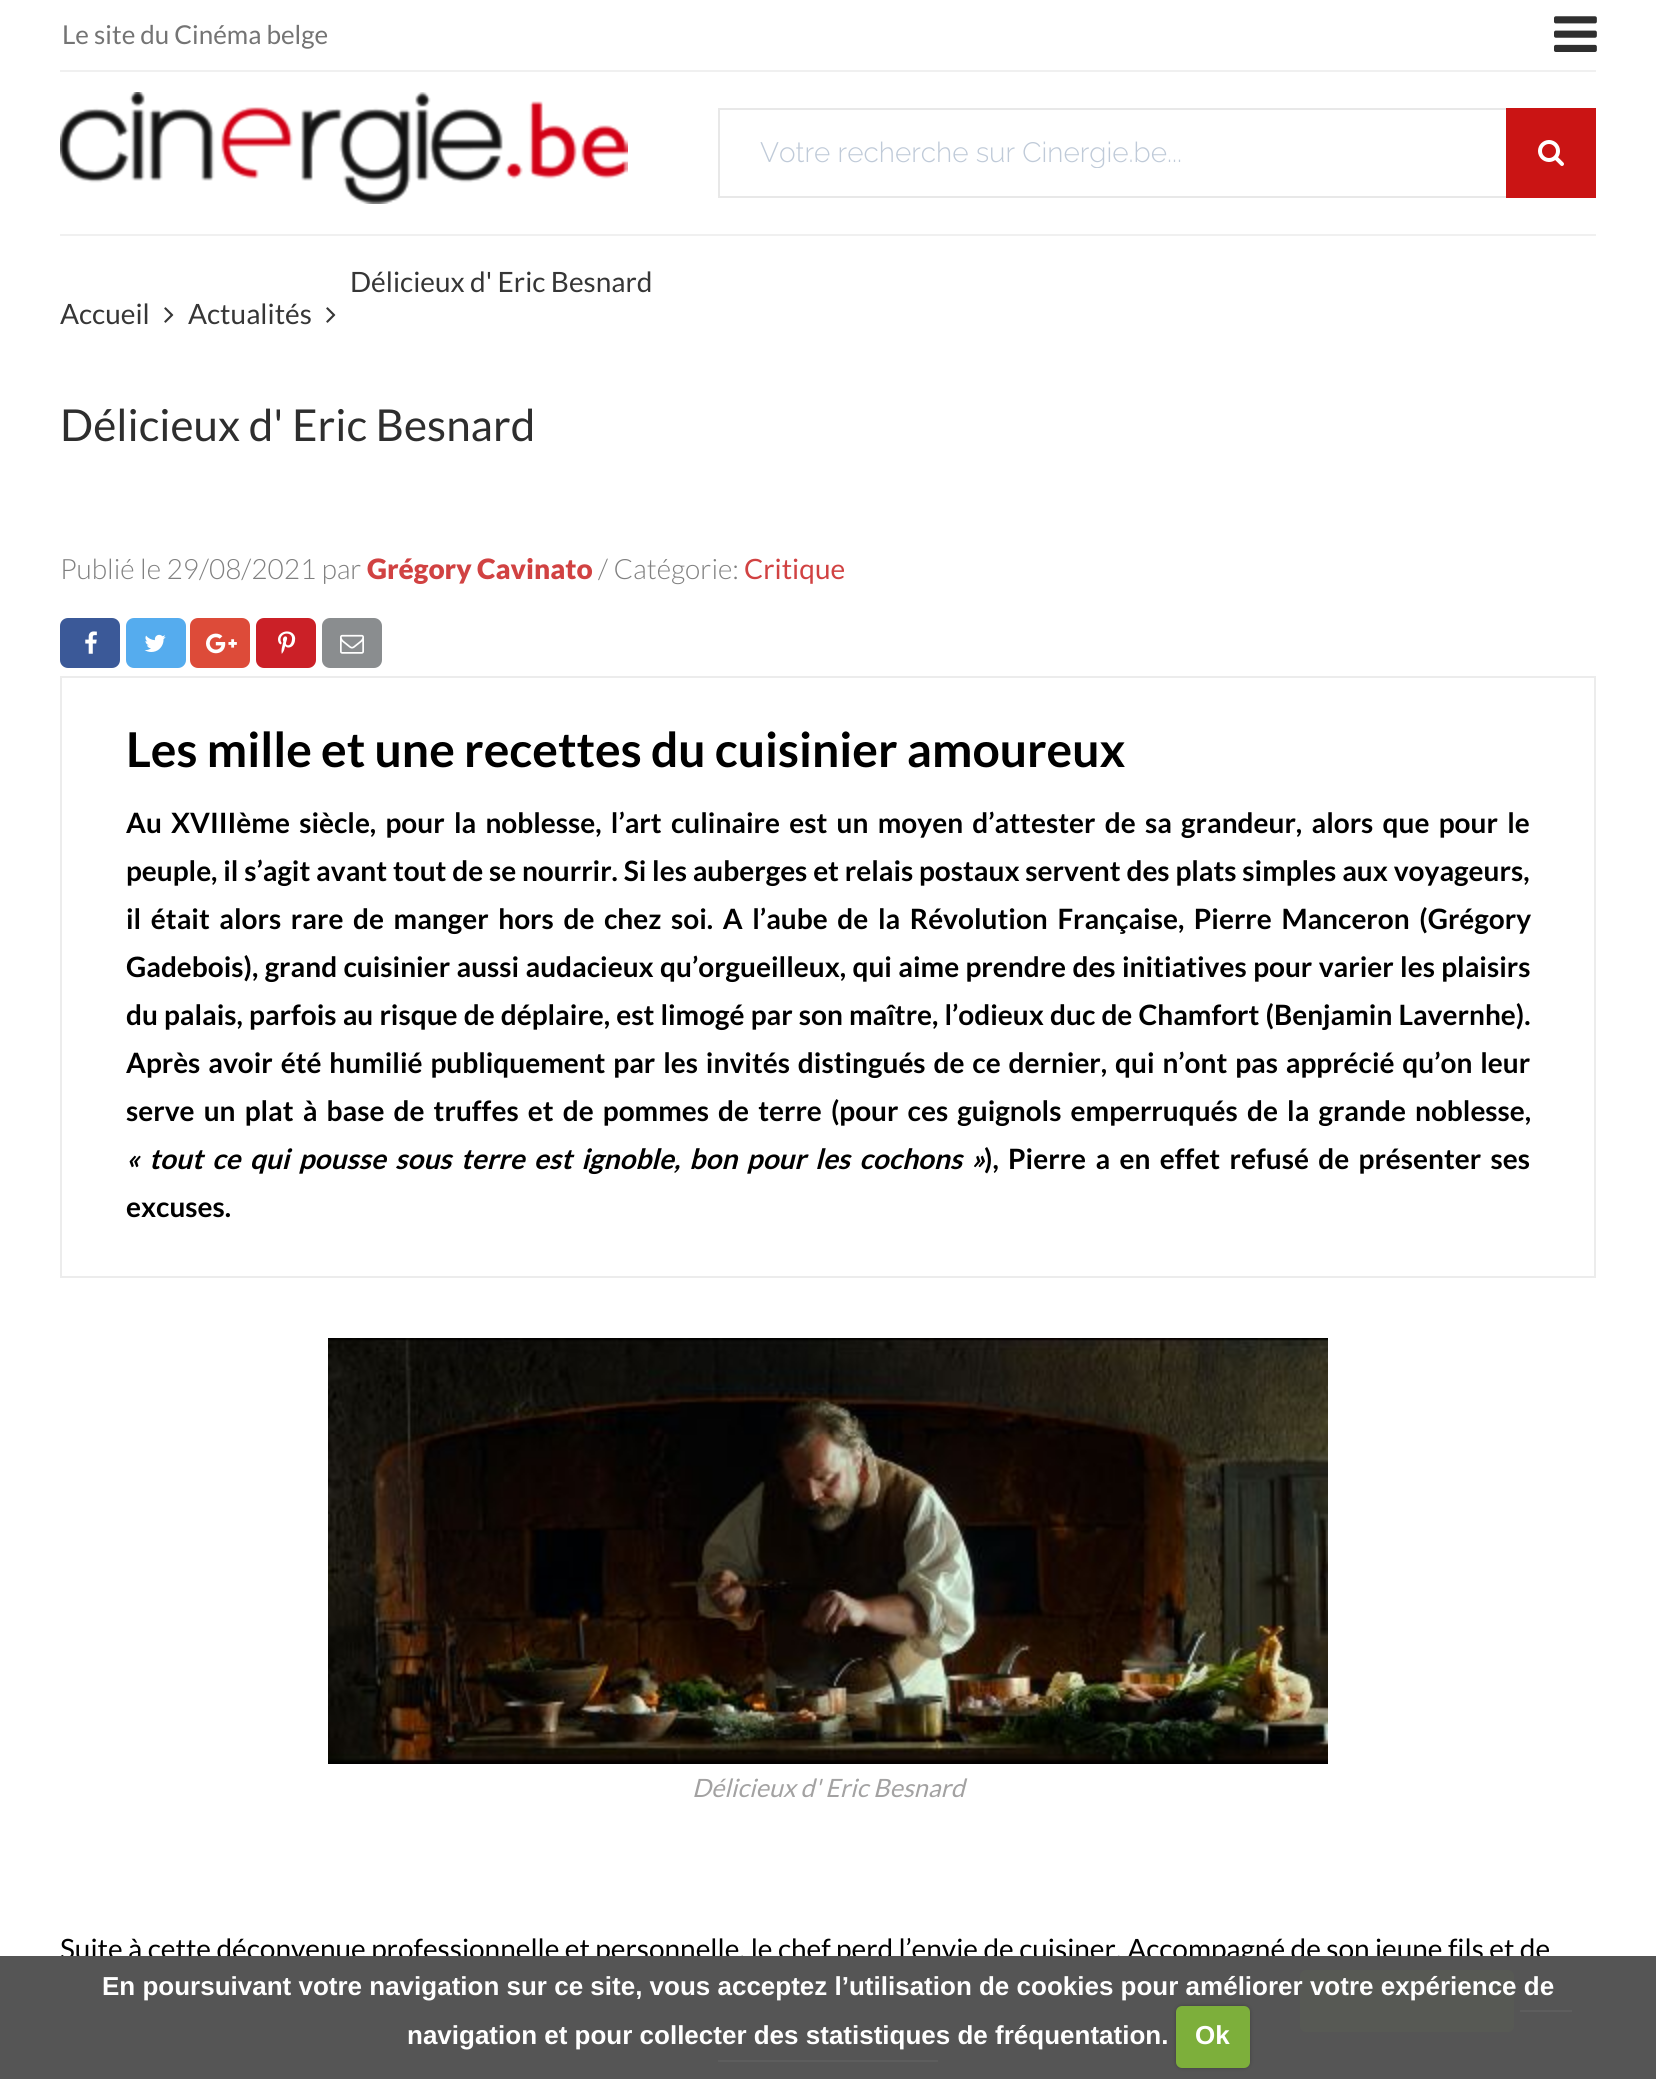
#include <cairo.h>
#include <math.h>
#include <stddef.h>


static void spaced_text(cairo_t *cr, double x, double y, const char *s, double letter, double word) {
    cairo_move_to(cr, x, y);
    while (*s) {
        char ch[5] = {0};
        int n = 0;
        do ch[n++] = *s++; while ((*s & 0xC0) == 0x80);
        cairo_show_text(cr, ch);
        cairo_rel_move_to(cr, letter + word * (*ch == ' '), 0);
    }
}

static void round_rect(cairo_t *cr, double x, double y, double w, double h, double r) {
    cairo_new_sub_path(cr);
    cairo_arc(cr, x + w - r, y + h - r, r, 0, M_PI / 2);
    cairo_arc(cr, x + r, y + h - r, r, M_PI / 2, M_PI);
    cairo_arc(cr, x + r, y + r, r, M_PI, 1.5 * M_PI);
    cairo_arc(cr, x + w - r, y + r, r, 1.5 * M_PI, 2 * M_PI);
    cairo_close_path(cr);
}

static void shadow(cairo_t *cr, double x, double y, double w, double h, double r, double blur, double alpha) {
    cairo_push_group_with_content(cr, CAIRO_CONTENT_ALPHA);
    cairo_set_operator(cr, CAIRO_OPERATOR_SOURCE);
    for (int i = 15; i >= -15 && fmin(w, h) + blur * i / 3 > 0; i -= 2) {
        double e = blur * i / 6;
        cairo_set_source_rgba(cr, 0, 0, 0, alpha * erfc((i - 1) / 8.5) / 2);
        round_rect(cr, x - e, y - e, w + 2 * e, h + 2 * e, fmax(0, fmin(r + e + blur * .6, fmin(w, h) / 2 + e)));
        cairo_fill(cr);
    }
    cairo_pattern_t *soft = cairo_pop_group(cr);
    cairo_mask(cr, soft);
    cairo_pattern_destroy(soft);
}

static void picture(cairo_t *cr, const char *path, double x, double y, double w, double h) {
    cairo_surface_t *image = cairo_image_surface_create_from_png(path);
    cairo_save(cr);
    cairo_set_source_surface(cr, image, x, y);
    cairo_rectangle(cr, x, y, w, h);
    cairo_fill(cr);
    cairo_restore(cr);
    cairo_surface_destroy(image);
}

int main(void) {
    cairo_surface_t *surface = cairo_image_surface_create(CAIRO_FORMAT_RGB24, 1656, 2079);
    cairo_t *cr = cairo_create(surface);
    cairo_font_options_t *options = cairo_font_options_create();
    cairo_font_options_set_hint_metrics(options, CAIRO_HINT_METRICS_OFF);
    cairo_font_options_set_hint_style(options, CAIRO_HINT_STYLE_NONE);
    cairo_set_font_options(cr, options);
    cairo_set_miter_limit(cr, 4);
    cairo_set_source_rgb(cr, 1, 1, 1);
    cairo_paint(cr);
    cairo_set_source_rgb(cr, 0.941, 0.941, 0.941);
    cairo_rectangle(cr, 60, 70, 1536, 2);
    cairo_fill(cr);
    cairo_select_font_face(cr, "Lato", CAIRO_FONT_SLANT_NORMAL, CAIRO_FONT_WEIGHT_NORMAL);
    cairo_set_font_size(cr, 26);
    cairo_set_source_rgb(cr, 0.455, 0.455, 0.455);
    cairo_move_to(cr, 62, 44);
    cairo_show_text(cr, "Le site du Cinéma belge");
    picture(cr, "img1.png", 1554, 16, 43, 36);
    cairo_set_source_rgb(cr, 0.941, 0.941, 0.941);
    cairo_rectangle(cr, 60, 234, 1536, 2);
    cairo_fill(cr);
    picture(cr, "img2.png", 60, 92, 568, 112);
    cairo_set_source_rgb(cr, 0.91, 0.91, 0.91);
    cairo_rectangle(cr, 718, 108, 788, 2);
    cairo_fill(cr);
    cairo_rectangle(cr, 718, 196, 788, 2);
    cairo_fill(cr);
    cairo_rectangle(cr, 718, 108, 2, 90);
    cairo_fill(cr);
    cairo_save(cr);
    cairo_rectangle(cr, 760, 136, 706, 32);
    cairo_clip(cr);
    cairo_select_font_face(cr, "Raleway Light", CAIRO_FONT_SLANT_NORMAL, CAIRO_FONT_WEIGHT_NORMAL);
    cairo_set_font_size(cr, 28);
    cairo_set_source_rgb(cr, 0.749, 0.792, 0.847);
    cairo_move_to(cr, 760, 162);
    cairo_show_text(cr, "Votre recherche sur Cinergie.be...");
    cairo_restore(cr);
    cairo_set_source_rgb(cr, 0.792, 0.082, 0.082);
    cairo_rectangle(cr, 1506, 108, 90, 90);
    cairo_fill(cr);
    picture(cr, "img3.png", 1538, 140, 26, 26);
    cairo_set_font_size(cr, 28);
    cairo_set_source_rgb(cr, 0.212, 0.212, 0.212);
    cairo_move_to(cr, 350, 292);
    cairo_show_text(cr, "Délicieux d' Eric Besnard");
    cairo_move_to(cr, 60, 324);
    cairo_show_text(cr, "Accueil");
    picture(cr, "img4.png", 164, 307, 10, 16);
    cairo_move_to(cr, 188, 324);
    cairo_show_text(cr, "Actualités");
    picture(cr, "img4.png", 326, 307, 10, 16);
    cairo_set_font_size(cr, 44);
    cairo_set_source_rgb(cr, 0.18, 0.18, 0.18);
    cairo_move_to(cr, 60, 441);
    cairo_show_text(cr, "Délicieux d' Eric Besnard");
    cairo_select_font_face(cr, "Lato Light", CAIRO_FONT_SLANT_NORMAL, CAIRO_FONT_WEIGHT_NORMAL);
    cairo_set_font_size(cr, 28);
    cairo_set_source_rgb(cr, 0.502, 0.502, 0.502);
    cairo_move_to(cr, 60, 579);
    cairo_show_text(cr, "Publié le 29/08/2021 par");
    cairo_select_font_face(cr, "Lato Black", CAIRO_FONT_SLANT_NORMAL, CAIRO_FONT_WEIGHT_NORMAL);
    cairo_set_source_rgb(cr, 0.82, 0.259, 0.259);
    cairo_move_to(cr, 367, 579);
    cairo_show_text(cr, "Grégory Cavinato");
    cairo_select_font_face(cr, "Lato Light", CAIRO_FONT_SLANT_NORMAL, CAIRO_FONT_WEIGHT_NORMAL);
    cairo_set_source_rgb(cr, 0.502, 0.502, 0.502);
    cairo_move_to(cr, 598, 579);
    cairo_show_text(cr, "/ Catégorie:");
    cairo_select_font_face(cr, "Lato", CAIRO_FONT_SLANT_NORMAL, CAIRO_FONT_WEIGHT_NORMAL);
    cairo_set_source_rgb(cr, 0.82, 0.259, 0.259);
    cairo_move_to(cr, 744, 579);
    cairo_show_text(cr, "Critique");
    cairo_set_source_rgb(cr, 0.231, 0.349, 0.596);
    round_rect(cr, 60, 618, 60, 50, 8);
    cairo_fill(cr);
    picture(cr, "img5.png", 85, 631, 12, 23);
    cairo_set_source_rgb(cr, 0.333, 0.675, 0.933);
    round_rect(cr, 126, 618, 60, 50, 8);
    cairo_fill(cr);
    picture(cr, "img6.png", 144, 634, 22, 18);
    cairo_set_source_rgb(cr, 0.867, 0.294, 0.224);
    round_rect(cr, 190, 618, 60, 50, 8);
    cairo_fill(cr);
    picture(cr, "img7.png", 206, 633, 31, 21);
    cairo_set_source_rgb(cr, 0.796, 0.125, 0.153);
    round_rect(cr, 256, 618, 60, 50, 8);
    cairo_fill(cr);
    picture(cr, "img8.png", 278, 631, 18, 23);
    cairo_set_source_rgb(cr, 0.541, 0.553, 0.561);
    round_rect(cr, 322, 618, 60, 50, 8);
    cairo_fill(cr);
    picture(cr, "img9.png", 340, 634, 24, 20);
    cairo_rectangle(cr, 61, 677, 1534, 600);
    cairo_set_source_rgb(cr, 0.922, 0.922, 0.922);
    cairo_stroke(cr);
    cairo_select_font_face(cr, "Lato", CAIRO_FONT_SLANT_NORMAL, CAIRO_FONT_WEIGHT_BOLD);
    cairo_set_font_size(cr, 48);
    cairo_set_source_rgb(cr, 0, 0, 0);
    cairo_move_to(cr, 126, 767);
    cairo_show_text(cr, "Les mille et une recettes du cuisinier amoureux");
    cairo_set_font_size(cr, 28);
    spaced_text(cr, 126, 833, "Au XVIIIème siècle, pour la noblesse, l’art culinaire est un moyen d’attester de sa grandeur, alors que pour le", 0, 3.9);
    spaced_text(cr, 126, 881, "peuple, il s’agit avant tout de se nourrir. Si les auberges et relais postaux servent des plats simples aux voyageurs,", 0, 0.4);
    spaced_text(cr, 126, 929, "il était alors rare de manger hors de chez soi. A l’aube de la Révolution Française, Pierre Manceron (Grégory", 0, 4.25);
    spaced_text(cr, 126, 977, "Gadebois), grand cuisinier aussi audacieux qu’orgueilleux, qui aime prendre des initiatives pour varier les plaisirs", 0, 1);
    spaced_text(cr, 126, 1025, "du palais, parfois au risque de déplaire, est limogé par son maître, l’odieux duc de Chamfort (Benjamin Lavernhe).", 0, 0.75);
    spaced_text(cr, 126, 1073, "Après avoir été humilié publiquement par les invités distingués de ce dernier, qui n’ont pas apprécié qu’on leur", 0, 2.5);
    spaced_text(cr, 126, 1121, "serve un plat à base de truffes et de pommes de terre (pour ces guignols emperruqués de la grande noblesse,", 0, 3.75);
    cairo_select_font_face(cr, "Lato", CAIRO_FONT_SLANT_ITALIC, CAIRO_FONT_WEIGHT_BOLD);
    spaced_text(cr, 126, 1169, "« tout ce qui pousse sous terre est ignoble, bon pour les cochons »", 0, 4);
    cairo_select_font_face(cr, "Lato", CAIRO_FONT_SLANT_NORMAL, CAIRO_FONT_WEIGHT_BOLD);
    spaced_text(cr, 984, 1169, "), Pierre a en effet refusé de présenter ses", 0, 4);
    cairo_move_to(cr, 126, 1217);
    cairo_show_text(cr, "excuses.");
    picture(cr, "img10.png", 328, 1338, 1000, 426);
    cairo_select_font_face(cr, "Lato", CAIRO_FONT_SLANT_ITALIC, CAIRO_FONT_WEIGHT_NORMAL);
    cairo_set_font_size(cr, 25.25);
    cairo_set_source_rgb(cr, 0.639, 0.635, 0.635);
    cairo_move_to(cr, 692, 1797);
    cairo_show_text(cr, "Délicieux d' Eric Besnard");
    cairo_select_font_face(cr, "Lato", CAIRO_FONT_SLANT_NORMAL, CAIRO_FONT_WEIGHT_NORMAL);
    cairo_set_font_size(cr, 28);
    cairo_set_source_rgb(cr, 0, 0, 0);
    cairo_move_to(cr, 60, 1959);
    cairo_show_text(cr, "Suite à cette déconvenue professionnelle et personnelle, le chef perd l’envie de cuisiner. Accompagné de son jeune fils et de");
    cairo_set_source_rgba(cr, 0.337, 0.337, 0.337, 0.95);
    cairo_rectangle(cr, 0, 1956, 1656, 123);
    cairo_fill(cr);
    cairo_set_source_rgb(cr, 0, 0, 0);
    shadow(cr, 1300, 1970, 214, 62, 6, 2, 0.25);
    cairo_set_source_rgb(cr, 0.49, 0.686, 0.231);
    round_rect(cr, 1300, 1970, 214, 62, 6);
    cairo_fill(cr);
    cairo_set_source_rgb(cr, 1, 1, 1);
    cairo_rectangle(cr, 1520, 2010, 52, 2);
    cairo_fill(cr);
    cairo_rectangle(cr, 718, 2060, 220, 2);
    cairo_fill(cr);
    cairo_set_source_rgba(cr, 0.337, 0.337, 0.337, 0.95);
    cairo_rectangle(cr, 0, 1956, 1656, 123);
    cairo_fill(cr);
    cairo_select_font_face(cr, "Liberation Sans", CAIRO_FONT_SLANT_NORMAL, CAIRO_FONT_WEIGHT_BOLD);
    cairo_set_font_size(cr, 26);
    cairo_set_source_rgb(cr, 1, 1, 1);
    cairo_move_to(cr, 102, 1995);
    cairo_show_text(cr, "En poursuivant votre navigation sur ce site, vous acceptez l’utilisation de cookies pour améliorer votre expérience de");
    cairo_move_to(cr, 407, 2044);
    cairo_show_text(cr, "navigation et pour collecter des statistiques de fréquentation.");
    cairo_set_source_rgb(cr, 0, 0, 0);
    shadow(cr, 1176, 2006, 74, 62, 6, 2, 0.25);
    cairo_set_source_rgb(cr, 0.49, 0.686, 0.231);
    round_rect(cr, 1176, 2006, 74, 62, 6);
    cairo_fill(cr);
    cairo_set_source_rgb(cr, 1, 1, 1);
    cairo_move_to(cr, 1195, 2044);
    cairo_show_text(cr, "Ok");
    cairo_surface_write_to_png(surface, "page.png");
    cairo_font_options_destroy(options);
    cairo_destroy(cr);
    cairo_surface_destroy(surface);
    return 0;
}
